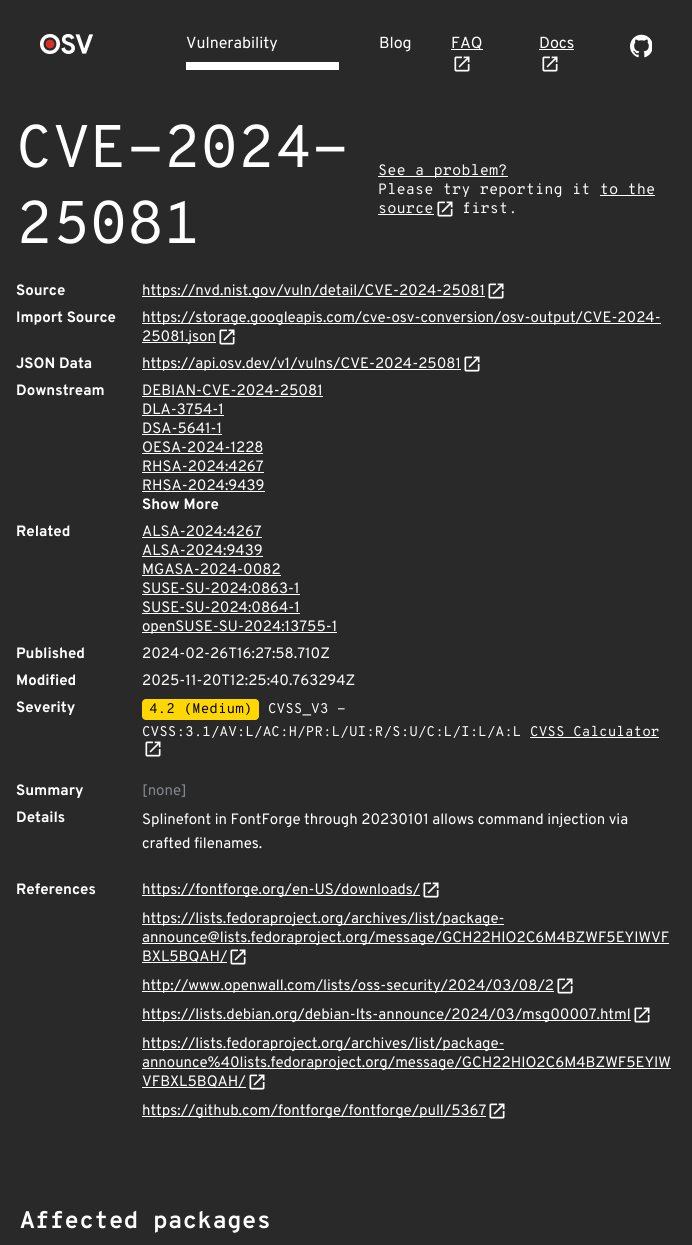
#include <cairo.h>
#include <math.h>
#include <stddef.h>


static void round_rect(cairo_t *cr, double x, double y, double w, double h, double r) {
    cairo_new_sub_path(cr);
    cairo_arc(cr, x + w - r, y + h - r, r, 0, M_PI / 2);
    cairo_arc(cr, x + r, y + h - r, r, M_PI / 2, M_PI);
    cairo_arc(cr, x + r, y + r, r, M_PI, 1.5 * M_PI);
    cairo_arc(cr, x + w - r, y + r, r, 1.5 * M_PI, 2 * M_PI);
    cairo_close_path(cr);
}

static void picture(cairo_t *cr, const char *path, double x, double y, double w, double h) {
    cairo_surface_t *image = cairo_image_surface_create_from_png(path);
    cairo_save(cr);
    cairo_set_source_surface(cr, image, x, y);
    cairo_rectangle(cr, x, y, w, h);
    cairo_fill(cr);
    cairo_restore(cr);
    cairo_surface_destroy(image);
}

int main(void) {
    cairo_surface_t *surface = cairo_image_surface_create(CAIRO_FORMAT_RGB24, 692, 1245);
    cairo_t *cr = cairo_create(surface);
    cairo_font_options_t *options = cairo_font_options_create();
    cairo_font_options_set_hint_metrics(options, CAIRO_HINT_METRICS_OFF);
    cairo_font_options_set_hint_style(options, CAIRO_HINT_STYLE_NONE);
    cairo_set_font_options(cr, options);
    cairo_set_miter_limit(cr, 4);
    cairo_set_source_rgb(cr, 0.161, 0.161, 0.161);
    cairo_paint(cr);
    picture(cr, "img1.png", 40, 34, 53, 20);
    cairo_set_source_rgb(cr, 1, 1, 1);
    cairo_rectangle(cr, 186, 62, 153, 8);
    cairo_fill(cr);
    cairo_select_font_face(cr, "Overpass", CAIRO_FONT_SLANT_NORMAL, CAIRO_FONT_WEIGHT_NORMAL);
    cairo_set_font_size(cr, 16);
    cairo_move_to(cr, 186, 48);
    cairo_show_text(cr, "Vulnerability");
    cairo_move_to(cr, 379, 48);
    cairo_show_text(cr, "Blog");
    cairo_rectangle(cr, 451, 49, 32, 1);
    cairo_fill(cr);
    cairo_move_to(cr, 451, 48);
    cairo_show_text(cr, "FAQ");
    picture(cr, "img2.png", 454, 56, 16, 16);
    cairo_move_to(cr, 539, 48);
    cairo_show_text(cr, "Docs");
    cairo_rectangle(cr, 539, 49, 35, 1);
    cairo_fill(cr);
    picture(cr, "img2.png", 542, 56, 16, 16);
    picture(cr, "img3.png", 630, 34, 22, 24);
    cairo_select_font_face(cr, "Overpass Mono", CAIRO_FONT_SLANT_NORMAL, CAIRO_FONT_WEIGHT_NORMAL);
    cairo_set_font_size(cr, 60);
    cairo_move_to(cr, 16, 167);
    cairo_show_text(cr, "CVE-2024-");
    cairo_move_to(cr, 16, 243);
    cairo_show_text(cr, "25081");
    cairo_rectangle(cr, 378, 176, 130, 1);
    cairo_fill(cr);
    cairo_set_font_size(cr, 15);
    cairo_move_to(cr, 378, 175);
    cairo_show_text(cr, "See a problem?");
    cairo_move_to(cr, 378, 194);
    cairo_show_text(cr, "Please try reporting it to the");
    cairo_move_to(cr, 378, 213);
    cairo_show_text(cr, "source");
    cairo_rectangle(cr, 600, 195, 55, 1);
    cairo_fill(cr);
    cairo_rectangle(cr, 378, 214, 56, 1);
    cairo_fill(cr);
    picture(cr, "img2.png", 437, 201, 16, 16);
    cairo_move_to(cr, 462, 213);
    cairo_show_text(cr, "first.");
    cairo_select_font_face(cr, "Overpass", CAIRO_FONT_SLANT_NORMAL, CAIRO_FONT_WEIGHT_BOLD);
    cairo_move_to(cr, 16, 295);
    cairo_show_text(cr, "Source");
    cairo_rectangle(cr, 142, 296, 343, 1);
    cairo_fill(cr);
    cairo_select_font_face(cr, "Overpass", CAIRO_FONT_SLANT_NORMAL, CAIRO_FONT_WEIGHT_NORMAL);
    cairo_move_to(cr, 142, 295);
    cairo_show_text(cr, "https://nvd.nist.gov/vuln/detail/CVE-2024-25081");
    picture(cr, "img2.png", 488, 283, 16, 16);
    cairo_select_font_face(cr, "Overpass", CAIRO_FONT_SLANT_NORMAL, CAIRO_FONT_WEIGHT_BOLD);
    cairo_move_to(cr, 16, 322);
    cairo_show_text(cr, "Import Source");
    cairo_rectangle(cr, 142, 323, 519, 1);
    cairo_fill(cr);
    cairo_select_font_face(cr, "Overpass", CAIRO_FONT_SLANT_NORMAL, CAIRO_FONT_WEIGHT_NORMAL);
    cairo_move_to(cr, 142, 322);
    cairo_show_text(cr, "https://storage.googleapis.com/cve-osv-conversion/osv-output/CVE-2024-");
    cairo_rectangle(cr, 142, 342, 74, 1);
    cairo_fill(cr);
    cairo_move_to(cr, 142, 341);
    cairo_show_text(cr, "25081.json");
    picture(cr, "img2.png", 219, 329, 16, 16);
    cairo_select_font_face(cr, "Overpass", CAIRO_FONT_SLANT_NORMAL, CAIRO_FONT_WEIGHT_BOLD);
    cairo_move_to(cr, 16, 368);
    cairo_show_text(cr, "JSON Data");
    cairo_rectangle(cr, 142, 369, 319, 1);
    cairo_fill(cr);
    cairo_select_font_face(cr, "Overpass", CAIRO_FONT_SLANT_NORMAL, CAIRO_FONT_WEIGHT_NORMAL);
    cairo_move_to(cr, 142, 368);
    cairo_show_text(cr, "https://api.osv.dev/v1/vulns/CVE-2024-25081");
    picture(cr, "img2.png", 464, 356, 16, 16);
    cairo_select_font_face(cr, "Overpass", CAIRO_FONT_SLANT_NORMAL, CAIRO_FONT_WEIGHT_BOLD);
    cairo_move_to(cr, 16, 395);
    cairo_show_text(cr, "Downstream");
    cairo_select_font_face(cr, "Overpass", CAIRO_FONT_SLANT_NORMAL, CAIRO_FONT_WEIGHT_NORMAL);
    cairo_move_to(cr, 142, 395);
    cairo_show_text(cr, "DEBIAN-CVE-2024-25081");
    cairo_rectangle(cr, 142, 396, 181, 1);
    cairo_fill(cr);
    cairo_move_to(cr, 142, 414);
    cairo_show_text(cr, "DLA-3754-1");
    cairo_rectangle(cr, 142, 415, 82, 1);
    cairo_fill(cr);
    cairo_move_to(cr, 142, 433);
    cairo_show_text(cr, "DSA-5641-1");
    cairo_rectangle(cr, 142, 434, 80, 1);
    cairo_fill(cr);
    cairo_move_to(cr, 142, 452);
    cairo_show_text(cr, "OESA-2024-1228");
    cairo_rectangle(cr, 142, 453, 121, 1);
    cairo_fill(cr);
    cairo_move_to(cr, 142, 471);
    cairo_show_text(cr, "RHSA-2024:4267");
    cairo_rectangle(cr, 142, 472, 122, 1);
    cairo_fill(cr);
    cairo_move_to(cr, 142, 490);
    cairo_show_text(cr, "RHSA-2024:9439");
    cairo_rectangle(cr, 142, 491, 123, 1);
    cairo_fill(cr);
    cairo_select_font_face(cr, "Overpass", CAIRO_FONT_SLANT_NORMAL, CAIRO_FONT_WEIGHT_BOLD);
    cairo_move_to(cr, 142, 509);
    cairo_show_text(cr, "Show More");
    cairo_move_to(cr, 16, 536);
    cairo_show_text(cr, "Related");
    cairo_select_font_face(cr, "Overpass", CAIRO_FONT_SLANT_NORMAL, CAIRO_FONT_WEIGHT_NORMAL);
    cairo_move_to(cr, 142, 536);
    cairo_show_text(cr, "ALSA-2024:4267");
    cairo_rectangle(cr, 142, 537, 120, 1);
    cairo_fill(cr);
    cairo_move_to(cr, 142, 555);
    cairo_show_text(cr, "ALSA-2024:9439");
    cairo_rectangle(cr, 142, 556, 121, 1);
    cairo_fill(cr);
    cairo_move_to(cr, 142, 574);
    cairo_show_text(cr, "MGASA-2024-0082");
    cairo_rectangle(cr, 142, 575, 139, 1);
    cairo_fill(cr);
    cairo_move_to(cr, 142, 593);
    cairo_show_text(cr, "SUSE-SU-2024:0863-1");
    cairo_rectangle(cr, 142, 594, 158, 1);
    cairo_fill(cr);
    cairo_move_to(cr, 142, 612);
    cairo_show_text(cr, "SUSE-SU-2024:0864-1");
    cairo_rectangle(cr, 142, 613, 158, 1);
    cairo_fill(cr);
    cairo_rectangle(cr, 142, 632, 195, 1);
    cairo_fill(cr);
    cairo_move_to(cr, 142, 631);
    cairo_show_text(cr, "openSUSE-SU-2024:13755-1");
    cairo_select_font_face(cr, "Overpass", CAIRO_FONT_SLANT_NORMAL, CAIRO_FONT_WEIGHT_BOLD);
    cairo_move_to(cr, 16, 658);
    cairo_show_text(cr, "Published");
    cairo_select_font_face(cr, "Overpass", CAIRO_FONT_SLANT_NORMAL, CAIRO_FONT_WEIGHT_NORMAL);
    cairo_move_to(cr, 142, 658);
    cairo_show_text(cr, "2024-02-26T16:27:58.710Z");
    cairo_select_font_face(cr, "Overpass", CAIRO_FONT_SLANT_NORMAL, CAIRO_FONT_WEIGHT_BOLD);
    cairo_move_to(cr, 16, 685);
    cairo_show_text(cr, "Modified");
    cairo_select_font_face(cr, "Overpass", CAIRO_FONT_SLANT_NORMAL, CAIRO_FONT_WEIGHT_NORMAL);
    cairo_move_to(cr, 142, 685);
    cairo_show_text(cr, "2025-11-20T12:25:40.763294Z");
    cairo_select_font_face(cr, "Overpass", CAIRO_FONT_SLANT_NORMAL, CAIRO_FONT_WEIGHT_BOLD);
    cairo_move_to(cr, 16, 712);
    cairo_show_text(cr, "Severity");
    cairo_set_source_rgb(cr, 1, 0.843, 0);
    round_rect(cr, 142, 699, 117, 21, 4);
    cairo_fill(cr);
    cairo_select_font_face(cr, "Overpass Mono", CAIRO_FONT_SLANT_NORMAL, CAIRO_FONT_WEIGHT_NORMAL);
    cairo_set_font_size(cr, 14);
    cairo_set_source_rgb(cr, 0, 0, 0);
    cairo_move_to(cr, 149, 713);
    cairo_show_text(cr, "4.2 (Medium)");
    cairo_set_source_rgb(cr, 1, 1, 1);
    cairo_move_to(cr, 268, 713);
    cairo_show_text(cr, "CVSS_V3 -");
    cairo_move_to(cr, 142, 736);
    cairo_show_text(cr, "CVSS:3.1/AV:L/AC:H/PR:L/UI:R/S:U/C:L/I:L/A:L CVSS Calculator");
    cairo_rectangle(cr, 530, 737, 129, 1);
    cairo_fill(cr);
    picture(cr, "img2.png", 145, 741, 16, 16);
    cairo_select_font_face(cr, "Overpass", CAIRO_FONT_SLANT_NORMAL, CAIRO_FONT_WEIGHT_BOLD);
    cairo_set_font_size(cr, 15);
    cairo_move_to(cr, 16, 795);
    cairo_show_text(cr, "Summary");
    cairo_select_font_face(cr, "Overpass", CAIRO_FONT_SLANT_NORMAL, CAIRO_FONT_WEIGHT_NORMAL);
    cairo_set_source_rgb(cr, 0.502, 0.525, 0.545);
    cairo_move_to(cr, 142, 795);
    cairo_show_text(cr, "[none]");
    cairo_select_font_face(cr, "Overpass", CAIRO_FONT_SLANT_NORMAL, CAIRO_FONT_WEIGHT_BOLD);
    cairo_set_source_rgb(cr, 1, 1, 1);
    cairo_move_to(cr, 16, 822);
    cairo_show_text(cr, "Details");
    cairo_select_font_face(cr, "Overpass", CAIRO_FONT_SLANT_NORMAL, CAIRO_FONT_WEIGHT_NORMAL);
    cairo_move_to(cr, 142, 824);
    cairo_show_text(cr, "Splinefont in FontForge through 20230101 allows command injection via");
    cairo_move_to(cr, 142, 848);
    cairo_show_text(cr, "crafted filenames.");
    cairo_select_font_face(cr, "Overpass", CAIRO_FONT_SLANT_NORMAL, CAIRO_FONT_WEIGHT_BOLD);
    cairo_move_to(cr, 16, 894);
    cairo_show_text(cr, "References");
    cairo_rectangle(cr, 142, 895, 278, 1);
    cairo_fill(cr);
    cairo_select_font_face(cr, "Overpass", CAIRO_FONT_SLANT_NORMAL, CAIRO_FONT_WEIGHT_NORMAL);
    cairo_move_to(cr, 142, 894);
    cairo_show_text(cr, "https://fontforge.org/en-US/downloads/");
    picture(cr, "img2.png", 423, 882, 16, 16);
    cairo_rectangle(cr, 142, 924, 362, 1);
    cairo_fill(cr);
    cairo_move_to(cr, 142, 923);
    cairo_show_text(cr, "https://lists.fedoraproject.org/archives/list/package-");
    cairo_rectangle(cr, 142, 943, 527, 1);
    cairo_fill(cr);
    cairo_move_to(cr, 142, 942);
    cairo_show_text(cr, "announce@lists.fedoraproject.org/message/GCH22HIO2C6M4BZWF5EYIWVF");
    cairo_rectangle(cr, 142, 962, 85, 1);
    cairo_fill(cr);
    cairo_move_to(cr, 142, 961);
    cairo_show_text(cr, "BXL5BQAH/");
    picture(cr, "img2.png", 230, 949, 16, 16);
    cairo_rectangle(cr, 142, 991, 412, 1);
    cairo_fill(cr);
    cairo_move_to(cr, 142, 990);
    cairo_show_text(cr, "http://www.openwall.com/lists/oss-security/2024/03/08/2");
    picture(cr, "img2.png", 557, 978, 16, 16);
    cairo_rectangle(cr, 142, 1020, 489, 1);
    cairo_fill(cr);
    cairo_move_to(cr, 142, 1019);
    cairo_show_text(cr, "https://lists.debian.org/debian-lts-announce/2024/03/msg00007.html");
    picture(cr, "img2.png", 634, 1007, 16, 16);
    cairo_rectangle(cr, 142, 1049, 362, 1);
    cairo_fill(cr);
    cairo_move_to(cr, 142, 1048);
    cairo_show_text(cr, "https://lists.fedoraproject.org/archives/list/package-");
    cairo_rectangle(cr, 142, 1068, 529, 1);
    cairo_fill(cr);
    cairo_move_to(cr, 142, 1067);
    cairo_show_text(cr, "announce%40lists.fedoraproject.org/message/GCH22HIO2C6M4BZWF5EYIW");
    cairo_rectangle(cr, 142, 1087, 104, 1);
    cairo_fill(cr);
    cairo_move_to(cr, 142, 1086);
    cairo_show_text(cr, "VFBXL5BQAH/");
    picture(cr, "img2.png", 249, 1074, 16, 16);
    cairo_rectangle(cr, 142, 1116, 344, 1);
    cairo_fill(cr);
    cairo_move_to(cr, 142, 1115);
    cairo_show_text(cr, "https://github.com/fontforge/fontforge/pull/5367");
    picture(cr, "img2.png", 489, 1103, 16, 16);
    cairo_select_font_face(cr, "Overpass Mono", CAIRO_FONT_SLANT_NORMAL, CAIRO_FONT_WEIGHT_BOLD);
    cairo_set_font_size(cr, 24);
    cairo_move_to(cr, 20, 1228);
    cairo_show_text(cr, "Affected packages");
    cairo_surface_write_to_png(surface, "page.png");
    cairo_font_options_destroy(options);
    cairo_destroy(cr);
    cairo_surface_destroy(surface);
    return 0;
}
